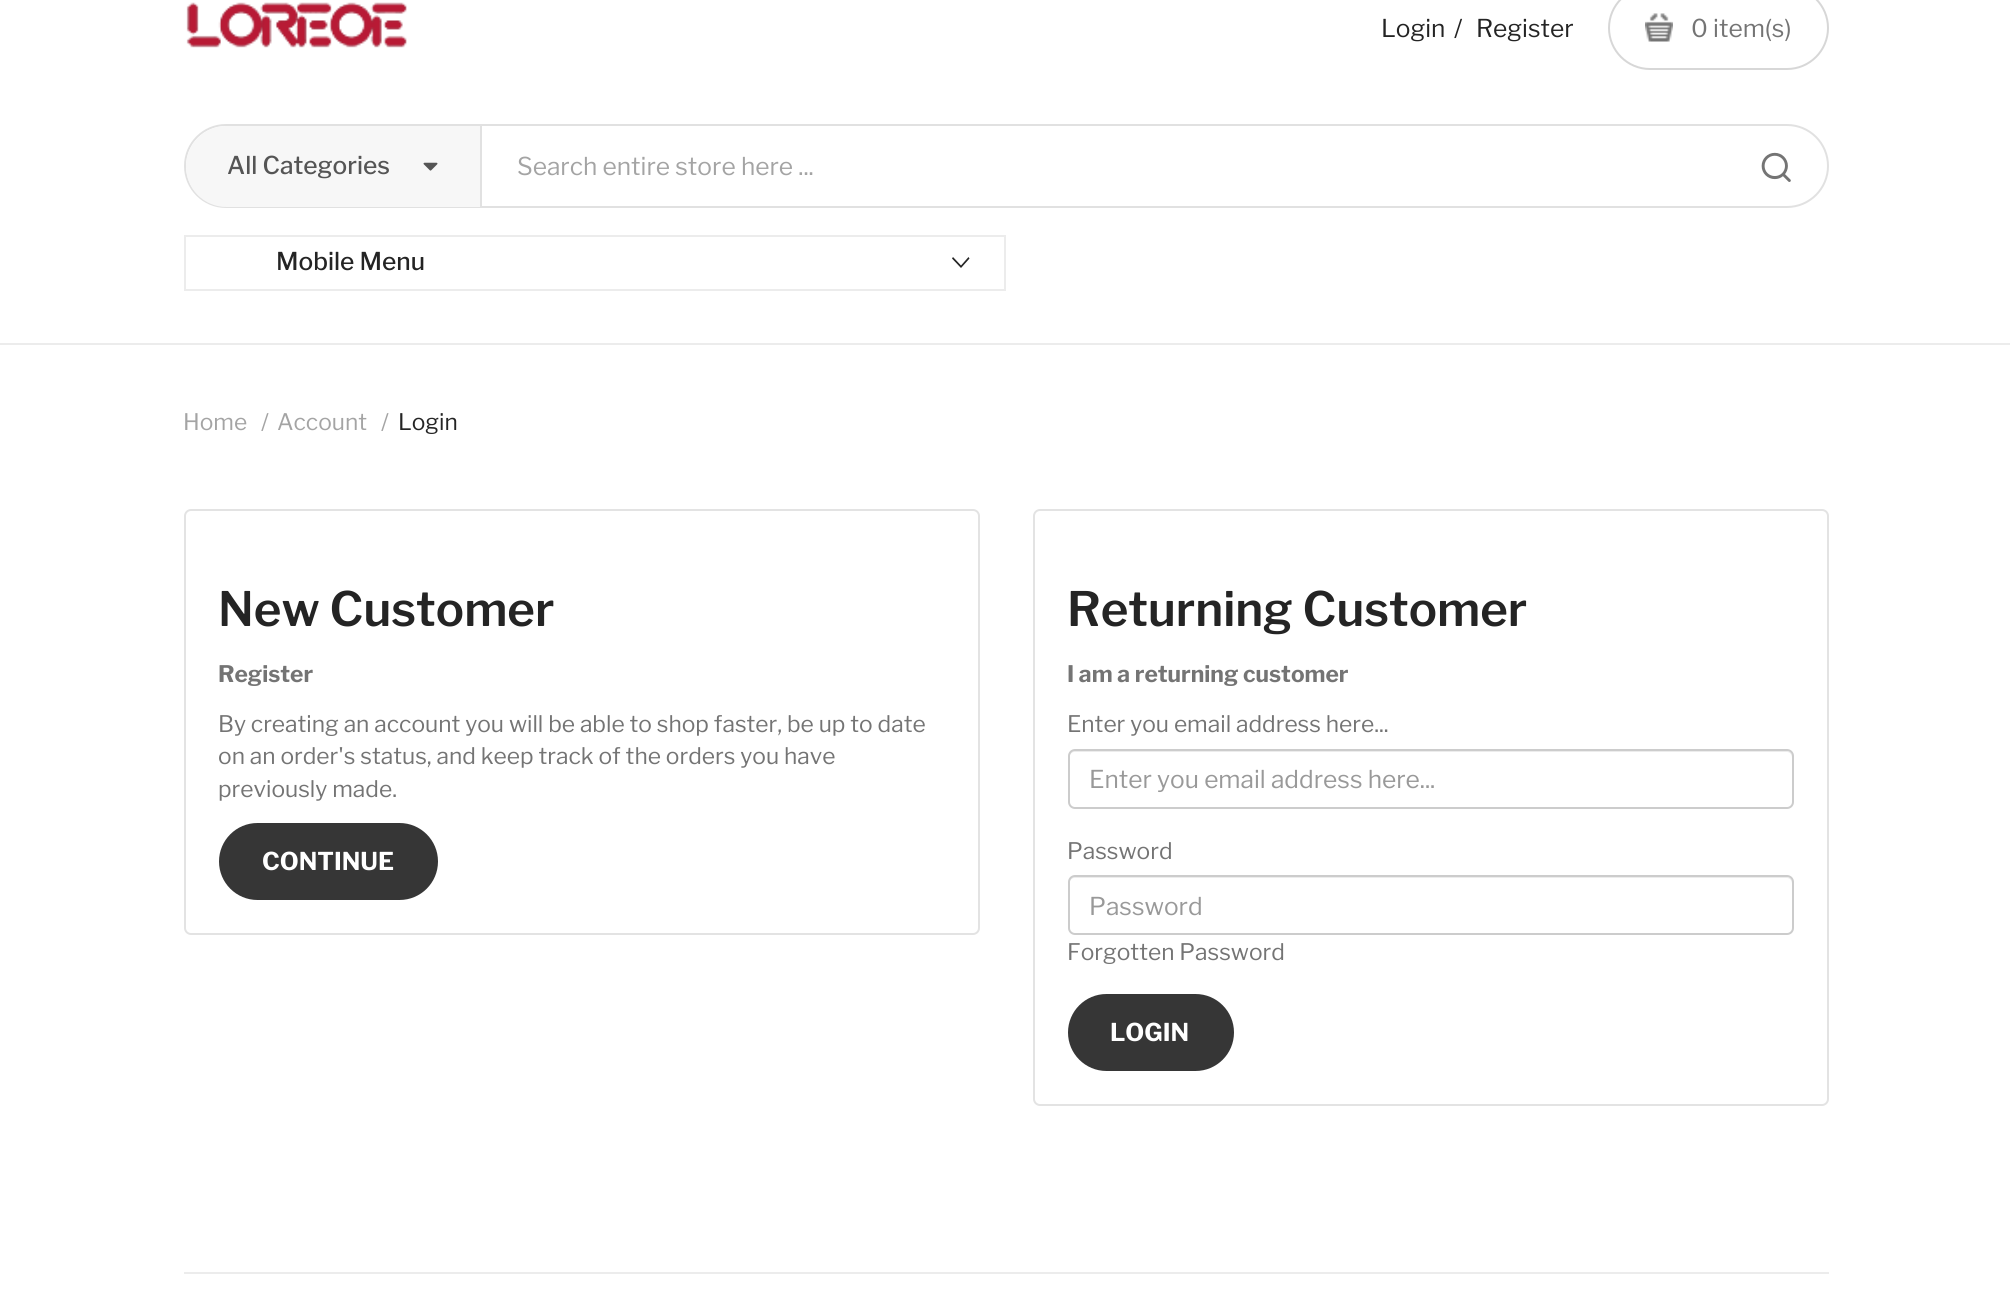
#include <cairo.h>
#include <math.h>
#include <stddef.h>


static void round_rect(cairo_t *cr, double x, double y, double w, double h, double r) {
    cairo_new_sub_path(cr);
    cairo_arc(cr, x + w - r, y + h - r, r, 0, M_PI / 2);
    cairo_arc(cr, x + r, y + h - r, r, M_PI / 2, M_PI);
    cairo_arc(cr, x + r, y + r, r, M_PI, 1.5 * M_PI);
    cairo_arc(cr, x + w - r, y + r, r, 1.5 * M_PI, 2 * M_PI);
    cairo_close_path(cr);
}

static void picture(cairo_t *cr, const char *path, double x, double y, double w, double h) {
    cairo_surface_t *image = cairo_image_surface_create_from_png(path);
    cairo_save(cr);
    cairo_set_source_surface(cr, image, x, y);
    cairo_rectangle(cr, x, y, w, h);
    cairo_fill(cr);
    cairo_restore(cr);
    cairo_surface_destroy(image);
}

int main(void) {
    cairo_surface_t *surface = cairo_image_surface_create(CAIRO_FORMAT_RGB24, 2010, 1304);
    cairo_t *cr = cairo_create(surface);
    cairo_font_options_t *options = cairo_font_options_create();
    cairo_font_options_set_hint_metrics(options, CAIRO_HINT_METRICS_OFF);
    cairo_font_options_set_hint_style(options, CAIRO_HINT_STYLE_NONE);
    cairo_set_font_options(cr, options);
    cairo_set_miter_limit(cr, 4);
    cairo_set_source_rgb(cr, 1, 1, 1);
    cairo_paint(cr);
    picture(cr, "img1.png", 186, 2, 221, 46);
    cairo_select_font_face(cr, "Libre Franklin", CAIRO_FONT_SLANT_NORMAL, CAIRO_FONT_WEIGHT_NORMAL);
    cairo_set_font_size(cr, 24.5);
    cairo_set_source_rgb(cr, 0.141, 0.141, 0.141);
    cairo_move_to(cr, 1381, 37);
    cairo_show_text(cr, "Login");
    cairo_move_to(cr, 1454, 37);
    cairo_show_text(cr, "/");
    cairo_move_to(cr, 1476, 37);
    cairo_show_text(cr, "Register");
    picture(cr, "img2.png", 1645, 13, 28, 29);
    round_rect(cr, 1609, -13, 219, 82, 41);
    cairo_set_source_rgb(cr, 0.843, 0.843, 0.843);
    cairo_stroke(cr);
    cairo_set_source_rgb(cr, 0.455, 0.455, 0.455);
    cairo_move_to(cr, 1691, 37);
    cairo_show_text(cr, "0 item(s)");
    round_rect(cr, 185, 125, 1643, 82, 41);
    cairo_set_source_rgb(cr, 0.882, 0.882, 0.882);
    cairo_stroke(cr);
    cairo_set_source_rgb(cr, 0.965, 0.965, 0.965);
    cairo_new_path(cr);
    cairo_move_to(cr, 226.5, 126);
    cairo_line_to(cr, 481, 126);
    cairo_line_to(cr, 481, 207);
    cairo_line_to(cr, 226.5, 207);
    cairo_curve_to(cr, 204, 207, 186, 189, 186, 166.5);
    cairo_curve_to(cr, 186, 144, 204, 126, 226.5, 126);
    cairo_close_path(cr);
    cairo_fill(cr);
    cairo_set_source_rgb(cr, 0.882, 0.882, 0.882);
    cairo_rectangle(cr, 480, 126, 2, 81);
    cairo_fill(cr);
    cairo_select_font_face(cr, "Libre Franklin Medium", CAIRO_FONT_SLANT_NORMAL, CAIRO_FONT_WEIGHT_NORMAL);
    cairo_set_source_rgb(cr, 0.333, 0.333, 0.333);
    cairo_move_to(cr, 227, 174);
    cairo_show_text(cr, "All Categories");
    picture(cr, "img3.png", 423, 162, 15, 9);
    cairo_select_font_face(cr, "Libre Franklin", CAIRO_FONT_SLANT_NORMAL, CAIRO_FONT_WEIGHT_NORMAL);
    cairo_set_source_rgb(cr, 0.643, 0.643, 0.643);
    cairo_move_to(cr, 517, 175);
    cairo_show_text(cr, "Search entire store here ...");
    picture(cr, "img4.png", 1761, 152, 30, 30);
    cairo_set_source_rgb(cr, 0.922, 0.922, 0.922);
    cairo_rectangle(cr, 0, 343, 2010, 2);
    cairo_fill(cr);
    cairo_rectangle(cr, 185, 236, 820, 54);
    cairo_stroke(cr);
    cairo_select_font_face(cr, "Libre Franklin Medium", CAIRO_FONT_SLANT_NORMAL, CAIRO_FONT_WEIGHT_NORMAL);
    cairo_set_source_rgb(cr, 0.141, 0.141, 0.141);
    cairo_move_to(cr, 276, 270);
    cairo_show_text(cr, "Mobile Menu");
    cairo_new_path(cr);
    cairo_move_to(cr, 968.5, 257);
    cairo_line_to(cr, 969.5, 258.5);
    cairo_line_to(cr, 961, 268);
    cairo_line_to(cr, 952, 258.5);
    cairo_line_to(cr, 953, 257);
    cairo_line_to(cr, 961, 265.5);
    cairo_close_path(cr);
    cairo_fill(cr);
    cairo_select_font_face(cr, "Libre Franklin", CAIRO_FONT_SLANT_NORMAL, CAIRO_FONT_WEIGHT_NORMAL);
    cairo_set_font_size(cr, 22.75);
    cairo_set_source_rgb(cr, 0.643, 0.643, 0.643);
    cairo_move_to(cr, 183, 430);
    cairo_show_text(cr, "Home");
    cairo_move_to(cr, 261, 430);
    cairo_show_text(cr, "/");
    cairo_move_to(cr, 277, 430);
    cairo_show_text(cr, "Account");
    cairo_move_to(cr, 381, 430);
    cairo_show_text(cr, "/");
    cairo_set_source_rgb(cr, 0.141, 0.141, 0.141);
    cairo_move_to(cr, 398, 430);
    cairo_show_text(cr, "Login");
    round_rect(cr, 185, 510, 794, 424, 6);
    cairo_set_source_rgb(cr, 0.89, 0.89, 0.89);
    cairo_stroke(cr);
    cairo_select_font_face(cr, "Libre Franklin SemiBold", CAIRO_FONT_SLANT_NORMAL, CAIRO_FONT_WEIGHT_NORMAL);
    cairo_set_font_size(cr, 47.25);
    cairo_set_source_rgb(cr, 0.141, 0.141, 0.141);
    cairo_move_to(cr, 218, 626);
    cairo_show_text(cr, "New Customer");
    cairo_select_font_face(cr, "Libre Franklin", CAIRO_FONT_SLANT_NORMAL, CAIRO_FONT_WEIGHT_BOLD);
    cairo_set_font_size(cr, 22.75);
    cairo_set_source_rgb(cr, 0.455, 0.455, 0.455);
    cairo_move_to(cr, 218, 682);
    cairo_show_text(cr, "Register");
    cairo_select_font_face(cr, "Libre Franklin", CAIRO_FONT_SLANT_NORMAL, CAIRO_FONT_WEIGHT_NORMAL);
    cairo_move_to(cr, 218, 732);
    cairo_show_text(cr, "By creating an account you will be able to shop faster, be up to date");
    cairo_move_to(cr, 218, 764);
    cairo_show_text(cr, "on an order's status, and keep track of the orders you have");
    cairo_move_to(cr, 218, 797);
    cairo_show_text(cr, "previously made.");
    cairo_set_source_rgb(cr, 0.212, 0.212, 0.212);
    round_rect(cr, 219, 823, 219, 77, 38.5);
    cairo_fill(cr);
    cairo_select_font_face(cr, "Libre Franklin", CAIRO_FONT_SLANT_NORMAL, CAIRO_FONT_WEIGHT_BOLD);
    cairo_set_font_size(cr, 24.5);
    cairo_set_source_rgb(cr, 1, 1, 1);
    cairo_move_to(cr, 262, 870);
    cairo_show_text(cr, "CONTINUE");
    round_rect(cr, 1034, 510, 794, 595, 6);
    cairo_set_source_rgb(cr, 0.89, 0.89, 0.89);
    cairo_stroke(cr);
    cairo_select_font_face(cr, "Libre Franklin SemiBold", CAIRO_FONT_SLANT_NORMAL, CAIRO_FONT_WEIGHT_NORMAL);
    cairo_set_font_size(cr, 47.25);
    cairo_set_source_rgb(cr, 0.141, 0.141, 0.141);
    cairo_move_to(cr, 1067, 626);
    cairo_show_text(cr, "Returning Customer");
    cairo_select_font_face(cr, "Libre Franklin", CAIRO_FONT_SLANT_NORMAL, CAIRO_FONT_WEIGHT_BOLD);
    cairo_set_font_size(cr, 22.75);
    cairo_set_source_rgb(cr, 0.455, 0.455, 0.455);
    cairo_move_to(cr, 1067, 682);
    cairo_show_text(cr, "I am a returning customer");
    cairo_select_font_face(cr, "Libre Franklin", CAIRO_FONT_SLANT_NORMAL, CAIRO_FONT_WEIGHT_NORMAL);
    cairo_move_to(cr, 1067, 732);
    cairo_show_text(cr, "Enter you email address here...");
    cairo_set_source_rgb(cr, 0.925, 0.925, 0.925);
    cairo_new_path(cr);
    cairo_move_to(cr, 1074, 752);
    cairo_line_to(cr, 1787, 752);
    cairo_curve_to(cr, 1790, 752, 1792, 755, 1792, 758);
    cairo_line_to(cr, 1792, 756);
    cairo_curve_to(cr, 1792, 753, 1790, 751, 1787, 751);
    cairo_line_to(cr, 1074, 751);
    cairo_curve_to(cr, 1071, 751, 1069, 753, 1069, 756);
    cairo_line_to(cr, 1069, 758);
    cairo_curve_to(cr, 1069, 755, 1072, 752, 1074, 752);
    cairo_close_path(cr);
    cairo_fill(cr);
    round_rect(cr, 1069, 750, 724, 58, 6);
    cairo_set_source_rgb(cr, 0.8, 0.8, 0.8);
    cairo_stroke(cr);
    cairo_set_font_size(cr, 24.5);
    cairo_set_source_rgb(cr, 0.6, 0.6, 0.6);
    cairo_move_to(cr, 1089, 788);
    cairo_show_text(cr, "Enter you email address here...");
    cairo_set_font_size(cr, 22.75);
    cairo_set_source_rgb(cr, 0.455, 0.455, 0.455);
    cairo_move_to(cr, 1067, 859);
    cairo_show_text(cr, "Password");
    cairo_set_source_rgb(cr, 0.925, 0.925, 0.925);
    cairo_new_path(cr);
    cairo_move_to(cr, 1074, 878);
    cairo_line_to(cr, 1787, 878);
    cairo_curve_to(cr, 1790, 878, 1792, 881, 1792, 884);
    cairo_line_to(cr, 1792, 882);
    cairo_curve_to(cr, 1792, 879, 1790, 877, 1787, 877);
    cairo_line_to(cr, 1074, 877);
    cairo_curve_to(cr, 1071, 877, 1069, 879, 1069, 882);
    cairo_line_to(cr, 1069, 884);
    cairo_curve_to(cr, 1069, 881, 1072, 878, 1074, 878);
    cairo_close_path(cr);
    cairo_fill(cr);
    round_rect(cr, 1069, 876, 724, 58, 6);
    cairo_set_source_rgb(cr, 0.8, 0.8, 0.8);
    cairo_stroke(cr);
    cairo_set_font_size(cr, 24.5);
    cairo_set_source_rgb(cr, 0.6, 0.6, 0.6);
    cairo_move_to(cr, 1089, 915);
    cairo_show_text(cr, "Password");
    cairo_set_font_size(cr, 22.75);
    cairo_set_source_rgb(cr, 0.455, 0.455, 0.455);
    cairo_move_to(cr, 1067, 960);
    cairo_show_text(cr, "Forgotten Password");
    cairo_set_source_rgb(cr, 0.212, 0.212, 0.212);
    round_rect(cr, 1068, 994, 166, 77, 38.5);
    cairo_fill(cr);
    cairo_select_font_face(cr, "Libre Franklin", CAIRO_FONT_SLANT_NORMAL, CAIRO_FONT_WEIGHT_BOLD);
    cairo_set_font_size(cr, 24.5);
    cairo_set_source_rgb(cr, 1, 1, 1);
    cairo_move_to(cr, 1110, 1041);
    cairo_show_text(cr, "LOGIN");
    cairo_set_source_rgb(cr, 0.922, 0.922, 0.922);
    cairo_rectangle(cr, 184, 1272, 1645, 2);
    cairo_fill(cr);
    cairo_surface_write_to_png(surface, "page.png");
    cairo_font_options_destroy(options);
    cairo_destroy(cr);
    cairo_surface_destroy(surface);
    return 0;
}
